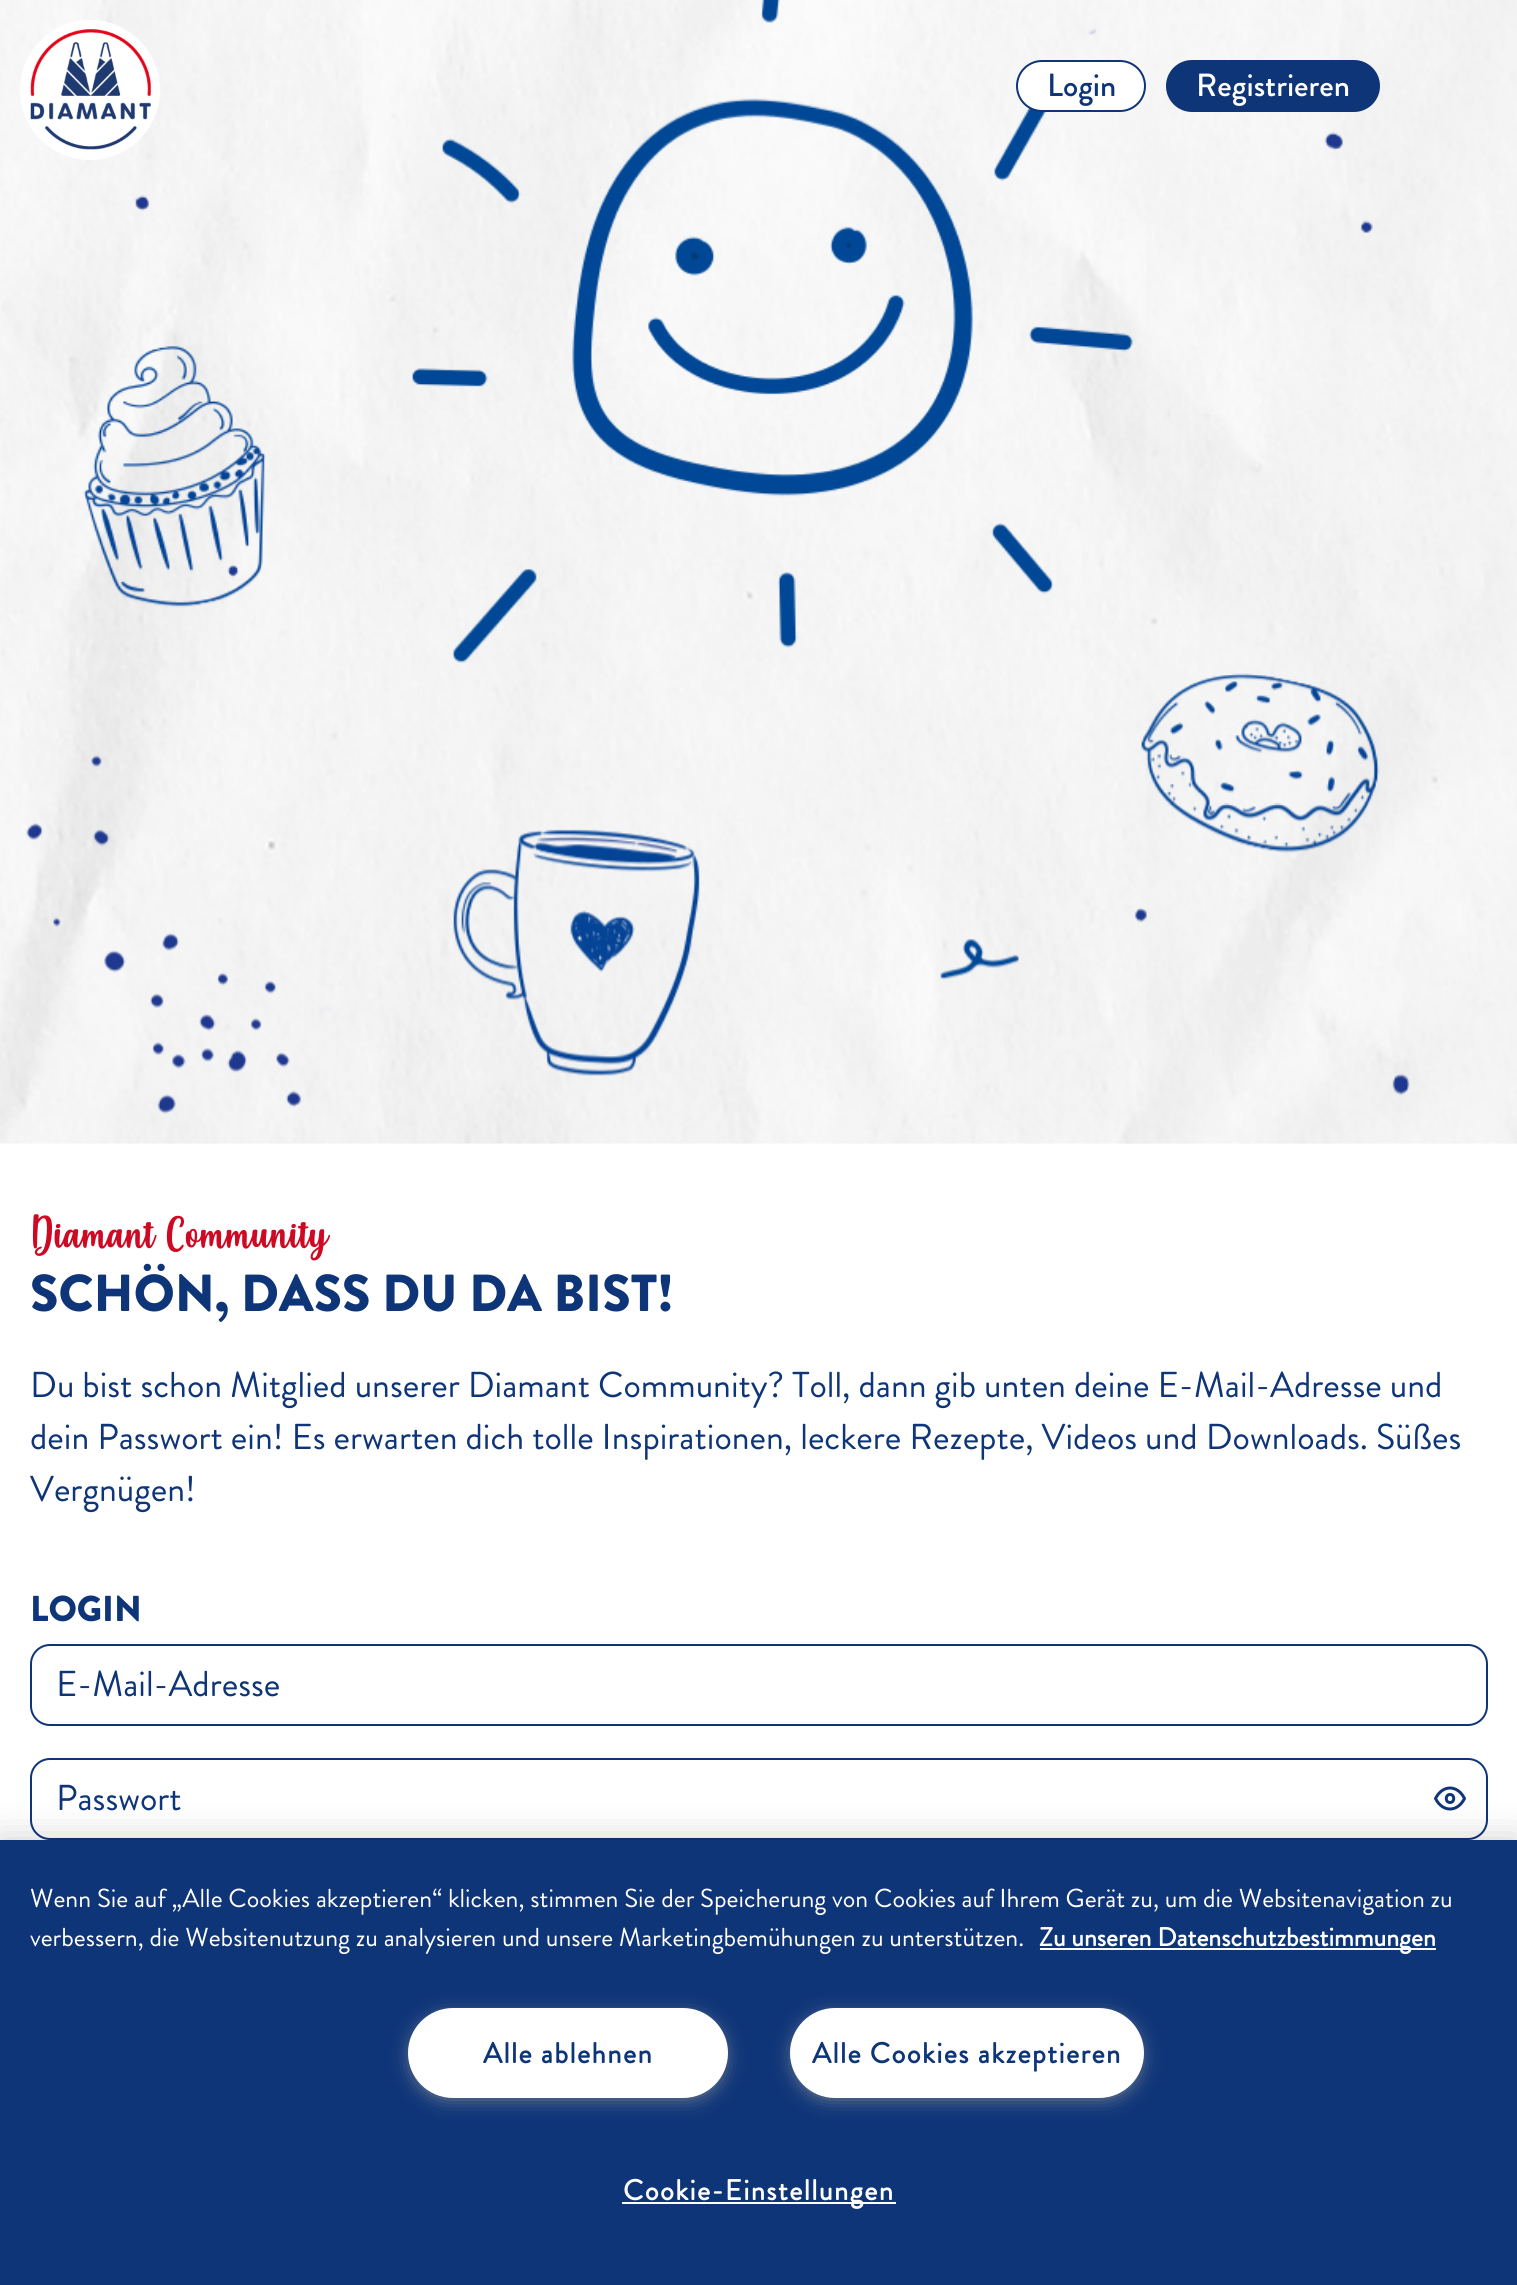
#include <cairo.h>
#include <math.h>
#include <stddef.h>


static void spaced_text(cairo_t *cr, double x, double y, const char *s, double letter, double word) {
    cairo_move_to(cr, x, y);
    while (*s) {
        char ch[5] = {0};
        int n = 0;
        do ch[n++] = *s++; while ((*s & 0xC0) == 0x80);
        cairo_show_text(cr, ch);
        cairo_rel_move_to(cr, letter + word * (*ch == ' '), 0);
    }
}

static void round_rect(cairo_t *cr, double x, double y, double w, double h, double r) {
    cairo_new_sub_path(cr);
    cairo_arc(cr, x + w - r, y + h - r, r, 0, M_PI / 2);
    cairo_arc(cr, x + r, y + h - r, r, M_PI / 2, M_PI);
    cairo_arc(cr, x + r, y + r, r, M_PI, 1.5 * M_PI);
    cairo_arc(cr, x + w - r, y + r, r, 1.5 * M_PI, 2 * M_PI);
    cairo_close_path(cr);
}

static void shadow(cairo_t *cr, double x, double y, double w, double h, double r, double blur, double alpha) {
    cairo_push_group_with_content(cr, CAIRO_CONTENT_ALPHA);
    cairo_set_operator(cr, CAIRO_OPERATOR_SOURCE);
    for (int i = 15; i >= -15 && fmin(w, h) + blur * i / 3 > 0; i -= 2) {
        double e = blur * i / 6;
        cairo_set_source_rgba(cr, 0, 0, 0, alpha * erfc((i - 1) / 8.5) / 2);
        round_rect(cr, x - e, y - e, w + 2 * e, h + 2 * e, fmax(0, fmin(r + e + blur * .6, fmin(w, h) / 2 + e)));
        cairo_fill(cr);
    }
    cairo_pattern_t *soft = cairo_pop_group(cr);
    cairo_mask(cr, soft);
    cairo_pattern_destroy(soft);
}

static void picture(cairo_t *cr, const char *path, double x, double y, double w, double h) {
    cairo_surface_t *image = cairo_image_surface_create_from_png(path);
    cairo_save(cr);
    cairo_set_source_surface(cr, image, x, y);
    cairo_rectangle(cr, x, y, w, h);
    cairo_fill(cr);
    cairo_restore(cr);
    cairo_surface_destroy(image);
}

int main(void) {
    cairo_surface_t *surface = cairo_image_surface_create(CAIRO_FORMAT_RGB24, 1517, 2285);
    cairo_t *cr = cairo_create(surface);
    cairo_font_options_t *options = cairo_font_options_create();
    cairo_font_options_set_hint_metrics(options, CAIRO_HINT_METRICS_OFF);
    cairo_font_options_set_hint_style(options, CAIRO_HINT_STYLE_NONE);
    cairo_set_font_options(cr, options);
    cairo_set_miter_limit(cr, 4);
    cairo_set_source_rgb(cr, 1, 1, 1);
    cairo_paint(cr);
    picture(cr, "img2.png", 0, 0, 1517, 1144);
    picture(cr, "img1.png", 20, 20, 140, 140);
    cairo_set_source_rgb(cr, 1, 1, 1);
    round_rect(cr, 1017, 61, 128, 50, 25);
    cairo_fill_preserve(cr);
    cairo_set_source_rgb(cr, 0.059, 0.208, 0.475);
    cairo_stroke(cr);
    cairo_select_font_face(cr, "Brandon Grotesque Medium", CAIRO_FONT_SLANT_NORMAL, CAIRO_FONT_WEIGHT_NORMAL);
    cairo_set_font_size(cr, 32);
    cairo_move_to(cr, 1047, 96);
    cairo_show_text(cr, "Login");
    round_rect(cr, 1167, 61, 212, 50, 25);
    cairo_fill_preserve(cr);
    cairo_stroke(cr);
    cairo_set_source_rgb(cr, 1, 1, 1);
    cairo_move_to(cr, 1196, 96);
    cairo_show_text(cr, "Registrieren");
    picture(cr, "img3.png", 32, 1214, 299, 47);
    cairo_select_font_face(cr, "Brandon Grotesque Black", CAIRO_FONT_SLANT_NORMAL, CAIRO_FONT_WEIGHT_NORMAL);
    cairo_set_font_size(cr, 52);
    cairo_set_source_rgb(cr, 0.059, 0.208, 0.475);
    cairo_move_to(cr, 30, 1311);
    cairo_show_text(cr, "SCHÖN, DASS DU DA BIST!");
    cairo_select_font_face(cr, "Brandon Grotesque", CAIRO_FONT_SLANT_NORMAL, CAIRO_FONT_WEIGHT_NORMAL);
    cairo_set_font_size(cr, 36);
    cairo_move_to(cr, 30, 1397);
    cairo_show_text(cr, "Du bist schon Mitglied unserer Diamant Community? Toll, dann gib unten deine E-Mail-Adresse und");
    cairo_move_to(cr, 30, 1449);
    cairo_show_text(cr, "dein Passwort ein! Es erwarten dich tolle Inspirationen, leckere Rezepte, Videos und Downloads. Süßes");
    cairo_move_to(cr, 30, 1501);
    cairo_show_text(cr, "Vergnügen!");
    cairo_select_font_face(cr, "Brandon Grotesque Black", CAIRO_FONT_SLANT_NORMAL, CAIRO_FONT_WEIGHT_NORMAL);
    cairo_move_to(cr, 30, 1621);
    cairo_show_text(cr, "LOGIN");
    round_rect(cr, 31, 1645, 1456, 80, 19);
    cairo_stroke(cr);
    cairo_select_font_face(cr, "Brandon Grotesque", CAIRO_FONT_SLANT_NORMAL, CAIRO_FONT_WEIGHT_NORMAL);
    cairo_move_to(cr, 56, 1696);
    cairo_show_text(cr, "E-Mail-Adresse");
    round_rect(cr, 31, 1759, 1456, 80, 19);
    cairo_stroke(cr);
    cairo_move_to(cr, 56, 1810);
    cairo_show_text(cr, "Passwort");
    cairo_new_path(cr);
    cairo_move_to(cr, 1435.5, 1798.5);
    cairo_curve_to(cr, 1442.5, 1784.5, 1457.5, 1784.5, 1464.5, 1798.5);
    cairo_curve_to(cr, 1457.5, 1812.5, 1442.5, 1812.5, 1435.5, 1798.5);
    cairo_close_path(cr);
    cairo_move_to(cr, 1450, 1802.5);
    cairo_curve_to(cr, 1455, 1802.5, 1455, 1794.5, 1450, 1794.5);
    cairo_curve_to(cr, 1445, 1794.5, 1445, 1802.5, 1450, 1802.5);
    cairo_close_path(cr);
    cairo_set_line_width(cr, 3);
    cairo_set_line_cap(cr, CAIRO_LINE_CAP_ROUND);
    cairo_set_line_join(cr, CAIRO_LINE_JOIN_ROUND);
    cairo_stroke(cr);
    cairo_set_source_rgb(cr, 0, 0, 0);
    shadow(cr, 0, 1840, 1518, 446, 0, 18, 0.2);
    cairo_set_source_rgb(cr, 0.059, 0.208, 0.475);
    cairo_rectangle(cr, 0, 1840, 1517, 445);
    cairo_fill(cr);
    cairo_set_font_size(cr, 26.02);
    cairo_set_source_rgb(cr, 1, 1, 1);
    cairo_move_to(cr, 30, 1907);
    cairo_show_text(cr, "Wenn Sie auf „Alle Cookies akzeptieren“ klicken, stimmen Sie der Speicherung von Cookies auf Ihrem Gerät zu, um die Websitenavigation zu");
    cairo_move_to(cr, 30, 1946);
    cairo_show_text(cr, "verbessern, die Websitenutzung zu analysieren und unsere Marketingbemühungen zu unterstützen.");
    cairo_rectangle(cr, 1040, 1948, 396, 2);
    cairo_fill(cr);
    cairo_select_font_face(cr, "Brandon Grotesque", CAIRO_FONT_SLANT_NORMAL, CAIRO_FONT_WEIGHT_BOLD);
    cairo_move_to(cr, 1039, 1946);
    cairo_show_text(cr, "Zu unseren Datenschutzbestimmungen");
    cairo_set_source_rgb(cr, 0.6, 0.6, 0.6);
    shadow(cr, 414, 2018, 308, 78, 39, 10, 1);
    cairo_set_source_rgb(cr, 1, 1, 1);
    round_rect(cr, 409, 2009, 318, 88, 44);
    cairo_fill_preserve(cr);
    cairo_set_line_width(cr, 2);
    cairo_set_line_cap(cr, CAIRO_LINE_CAP_BUTT);
    cairo_set_line_join(cr, CAIRO_LINE_JOIN_MITER);
    cairo_stroke(cr);
    cairo_set_font_size(cr, 28.75);
    cairo_set_source_rgb(cr, 0.059, 0.208, 0.475);
    spaced_text(cr, 483, 2063, "Alle ablehnen", 1.4, 0);
    cairo_set_source_rgb(cr, 0.6, 0.6, 0.6);
    shadow(cr, 796, 2018, 342, 78, 39, 10, 1);
    cairo_set_source_rgb(cr, 1, 1, 1);
    round_rect(cr, 791, 2009, 352, 88, 44);
    cairo_fill_preserve(cr);
    cairo_stroke(cr);
    cairo_set_source_rgb(cr, 0.059, 0.208, 0.475);
    spaced_text(cr, 812, 2063, "Alle Cookies akzeptieren", 1.4, 0);
    cairo_set_source_rgb(cr, 1, 1, 1);
    cairo_rectangle(cr, 622, 2202, 274, 2);
    cairo_fill(cr);
    spaced_text(cr, 623, 2200, "Cookie-Einstellungen", 1.4, 0);
    cairo_surface_write_to_png(surface, "page.png");
    cairo_font_options_destroy(options);
    cairo_destroy(cr);
    cairo_surface_destroy(surface);
    return 0;
}
